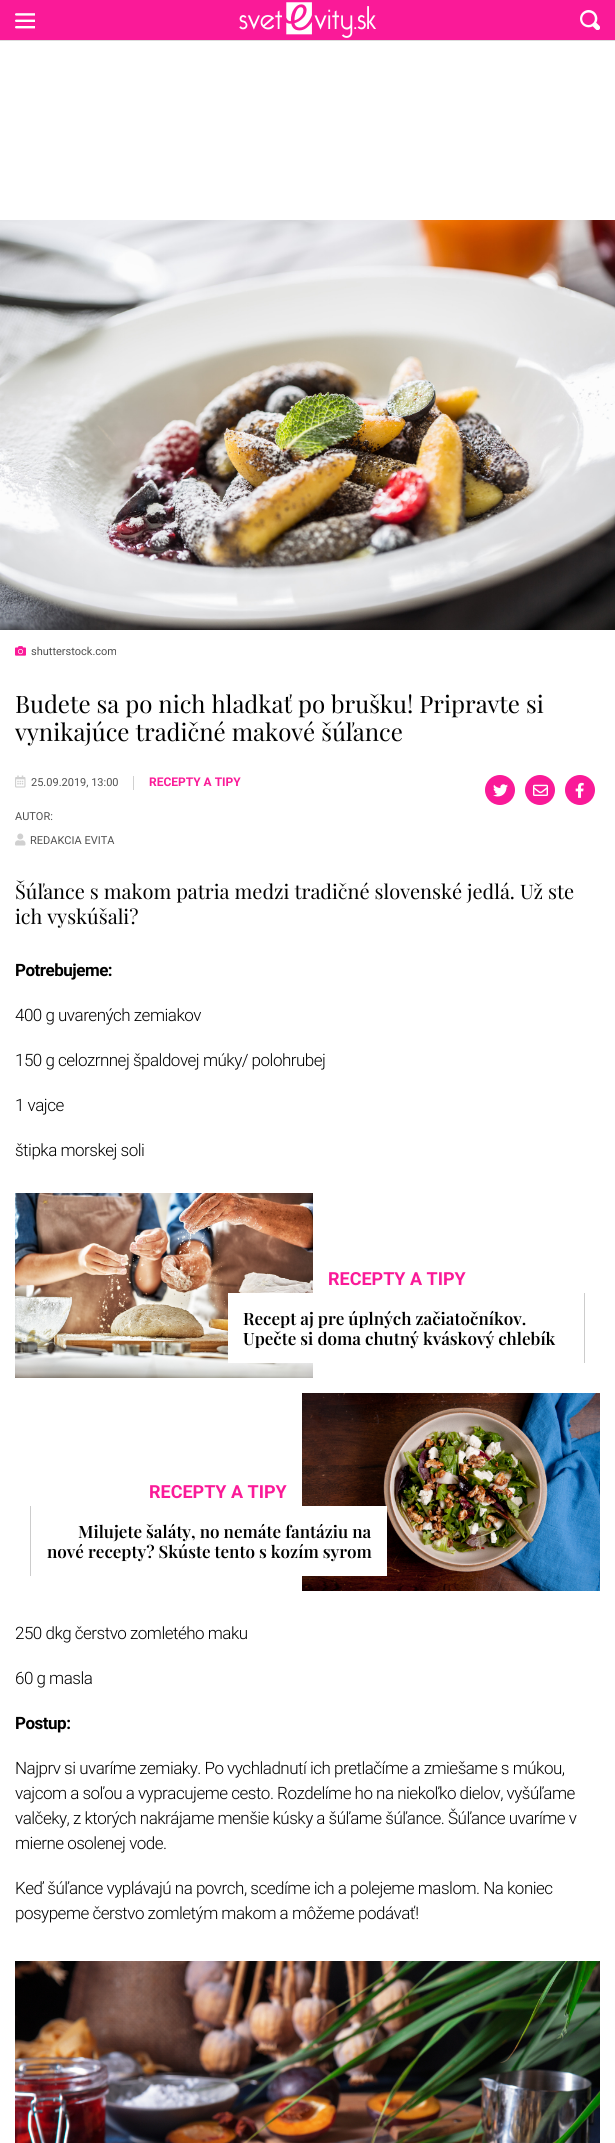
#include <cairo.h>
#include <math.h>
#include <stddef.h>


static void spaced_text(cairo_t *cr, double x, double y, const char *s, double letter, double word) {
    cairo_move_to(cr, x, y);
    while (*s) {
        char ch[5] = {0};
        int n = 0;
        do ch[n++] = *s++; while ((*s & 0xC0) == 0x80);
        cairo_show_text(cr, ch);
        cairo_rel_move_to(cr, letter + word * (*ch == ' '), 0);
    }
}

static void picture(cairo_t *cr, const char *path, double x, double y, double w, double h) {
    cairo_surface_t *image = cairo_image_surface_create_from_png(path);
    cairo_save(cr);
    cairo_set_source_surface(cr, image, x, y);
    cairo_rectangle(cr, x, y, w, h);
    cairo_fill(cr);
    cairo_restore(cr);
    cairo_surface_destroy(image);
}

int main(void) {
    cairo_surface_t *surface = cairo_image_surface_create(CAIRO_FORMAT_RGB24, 615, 2143);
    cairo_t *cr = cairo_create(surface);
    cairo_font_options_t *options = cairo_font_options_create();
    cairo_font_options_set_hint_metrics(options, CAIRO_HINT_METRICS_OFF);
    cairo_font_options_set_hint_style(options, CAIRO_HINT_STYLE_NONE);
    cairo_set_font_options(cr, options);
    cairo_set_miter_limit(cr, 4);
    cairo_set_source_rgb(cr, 1, 1, 1);
    cairo_paint(cr);
    cairo_set_source_rgb(cr, 0.98, 0.102, 0.596);
    cairo_rectangle(cr, 0, 0, 615, 40);
    cairo_fill(cr);
    cairo_set_source_rgb(cr, 0.867, 0.867, 0.867);
    cairo_rectangle(cr, 0, 40, 615, 1);
    cairo_fill(cr);
    picture(cr, "img1.png", 15, 13, 20, 16);
    picture(cr, "img2.png", 239, 2, 137, 36);
    picture(cr, "img3.png", 580, 10, 20, 20);
    picture(cr, "img4.png", 0, 220, 615, 410);
    picture(cr, "img5.png", 15, 646, 11, 10);
    cairo_select_font_face(cr, "Roboto", CAIRO_FONT_SLANT_NORMAL, CAIRO_FONT_WEIGHT_NORMAL);
    cairo_set_font_size(cr, 11);
    cairo_set_source_rgb(cr, 0.314, 0.314, 0.314);
    cairo_move_to(cr, 31, 655);
    cairo_show_text(cr, "shutterstock.com");
    cairo_select_font_face(cr, "Playfair Display", CAIRO_FONT_SLANT_NORMAL, CAIRO_FONT_WEIGHT_NORMAL);
    cairo_set_font_size(cr, 24);
    cairo_set_source_rgb(cr, 0, 0, 0);
    cairo_move_to(cr, 15, 713);
    cairo_show_text(cr, "Budete sa po nich hladkať po brušku! Pripravte si");
    cairo_move_to(cr, 15, 741);
    cairo_show_text(cr, "vynikajúce tradičné makové šúľance");
    cairo_set_source_rgb(cr, 0.816, 0.816, 0.816);
    cairo_rectangle(cr, 133, 776, 1, 14);
    cairo_fill(cr);
    picture(cr, "img6.png", 15, 775, 11, 13);
    cairo_select_font_face(cr, "Roboto", CAIRO_FONT_SLANT_NORMAL, CAIRO_FONT_WEIGHT_NORMAL);
    cairo_set_font_size(cr, 11);
    cairo_set_source_rgb(cr, 0.314, 0.314, 0.314);
    cairo_move_to(cr, 31, 786);
    cairo_show_text(cr, "25.09.2019, 13:00");
    cairo_select_font_face(cr, "Roboto", CAIRO_FONT_SLANT_NORMAL, CAIRO_FONT_WEIGHT_BOLD);
    cairo_set_font_size(cr, 12);
    cairo_set_source_rgb(cr, 0.98, 0.102, 0.596);
    cairo_move_to(cr, 149, 786);
    cairo_show_text(cr, "RECEPTY A TIPY");
    cairo_new_path(cr);
    cairo_arc(cr, 500, 790, 15, 0, 2 * M_PI);
    cairo_fill(cr);
    picture(cr, "img7.png", 493, 784, 15, 13);
    cairo_arc(cr, 540, 790, 15, 0, 2 * M_PI);
    cairo_fill(cr);
    picture(cr, "img8.png", 533, 784, 15, 12);
    cairo_arc(cr, 580, 790, 15, 0, 2 * M_PI);
    cairo_fill(cr);
    picture(cr, "img9.png", 575, 782, 9, 16);
    cairo_select_font_face(cr, "Roboto", CAIRO_FONT_SLANT_NORMAL, CAIRO_FONT_WEIGHT_NORMAL);
    cairo_set_font_size(cr, 11);
    cairo_set_source_rgb(cr, 0.314, 0.314, 0.314);
    cairo_move_to(cr, 15, 820);
    cairo_show_text(cr, "AUTOR:");
    picture(cr, "img10.png", 15, 833, 11, 13);
    cairo_move_to(cr, 30, 844);
    cairo_show_text(cr, "REDAKCIA EVITA");
    cairo_select_font_face(cr, "Playfair Display", CAIRO_FONT_SLANT_NORMAL, CAIRO_FONT_WEIGHT_NORMAL);
    cairo_set_font_size(cr, 20);
    cairo_set_source_rgb(cr, 0, 0, 0);
    cairo_move_to(cr, 15, 899);
    cairo_show_text(cr, "Šúľance s makom patria medzi tradičné slovenské jedlá. Už ste");
    cairo_move_to(cr, 15, 924);
    cairo_show_text(cr, "ich vyskúšali?");
    cairo_select_font_face(cr, "Roboto", CAIRO_FONT_SLANT_NORMAL, CAIRO_FONT_WEIGHT_BOLD);
    cairo_set_font_size(cr, 17);
    spaced_text(cr, 15, 976, "Potrebujeme:", -0.5, 0);
    cairo_select_font_face(cr, "Roboto Light", CAIRO_FONT_SLANT_NORMAL, CAIRO_FONT_WEIGHT_NORMAL);
    spaced_text(cr, 15, 1021, "400 g uvarených zemiakov", -0.5, 0);
    spaced_text(cr, 15, 1066, "150 g celozrnnej špaldovej múky/ polohrubej", -0.5, 0);
    spaced_text(cr, 15, 1111, "1 vajce", -0.5, 0);
    spaced_text(cr, 15, 1156, "štipka morskej soli", -0.5, 0);
    picture(cr, "img11.png", 15, 1193, 298, 185);
    cairo_select_font_face(cr, "Roboto", CAIRO_FONT_SLANT_NORMAL, CAIRO_FONT_WEIGHT_BOLD);
    cairo_set_font_size(cr, 18);
    cairo_set_source_rgb(cr, 0.98, 0.102, 0.596);
    cairo_move_to(cr, 328, 1285);
    cairo_show_text(cr, "RECEPTY A TIPY");
    cairo_set_source_rgb(cr, 1, 1, 1);
    cairo_rectangle(cr, 228, 1293, 85, 70);
    cairo_fill(cr);
    cairo_set_source_rgb(cr, 0.8, 0.8, 0.8);
    cairo_rectangle(cr, 584, 1293, 1, 70);
    cairo_fill(cr);
    cairo_select_font_face(cr, "Playfair Display SemiBold", CAIRO_FONT_SLANT_NORMAL, CAIRO_FONT_WEIGHT_NORMAL);
    cairo_set_font_size(cr, 17);
    cairo_set_source_rgb(cr, 0, 0, 0);
    cairo_move_to(cr, 243, 1325);
    cairo_show_text(cr, "Recept aj pre úplných začiatočníkov.");
    cairo_move_to(cr, 243, 1345);
    cairo_show_text(cr, "Upečte si doma chutný kváskový chlebík");
    cairo_select_font_face(cr, "Roboto", CAIRO_FONT_SLANT_NORMAL, CAIRO_FONT_WEIGHT_BOLD);
    cairo_set_font_size(cr, 18);
    cairo_set_source_rgb(cr, 0.98, 0.102, 0.596);
    cairo_move_to(cr, 149, 1498);
    cairo_show_text(cr, "RECEPTY A TIPY");
    picture(cr, "img12.png", 302, 1393, 298, 198);
    cairo_set_source_rgb(cr, 1, 1, 1);
    cairo_rectangle(cr, 302, 1506, 85, 70);
    cairo_fill(cr);
    cairo_set_source_rgb(cr, 0.8, 0.8, 0.8);
    cairo_rectangle(cr, 30, 1506, 1, 70);
    cairo_fill(cr);
    cairo_select_font_face(cr, "Playfair Display SemiBold", CAIRO_FONT_SLANT_NORMAL, CAIRO_FONT_WEIGHT_NORMAL);
    cairo_set_font_size(cr, 17);
    cairo_set_source_rgb(cr, 0, 0, 0);
    cairo_move_to(cr, 78, 1538);
    cairo_show_text(cr, "Milujete šaláty, no nemáte fantáziu na");
    cairo_move_to(cr, 47, 1558);
    cairo_show_text(cr, "nové recepty? Skúste tento s kozím syrom");
    cairo_select_font_face(cr, "Roboto Light", CAIRO_FONT_SLANT_NORMAL, CAIRO_FONT_WEIGHT_NORMAL);
    spaced_text(cr, 15, 1639, "250 dkg čerstvo zomletého maku", -0.5, 0);
    spaced_text(cr, 15, 1684, "60 g masla", -0.5, 0);
    cairo_select_font_face(cr, "Roboto", CAIRO_FONT_SLANT_NORMAL, CAIRO_FONT_WEIGHT_BOLD);
    spaced_text(cr, 15, 1729, "Postup:", -0.5, 0);
    cairo_select_font_face(cr, "Roboto Light", CAIRO_FONT_SLANT_NORMAL, CAIRO_FONT_WEIGHT_NORMAL);
    spaced_text(cr, 15, 1774, "Najprv si uvaríme zemiaky. Po vychladnutí ich pretlačíme a zmiešame s múkou,", -0.5, 0);
    spaced_text(cr, 15, 1799, "vajcom a soľou a vypracujeme cesto. Rozdelíme ho na niekoľko dielov, vyšúľame", -0.5, 0);
    spaced_text(cr, 15, 1824, "valčeky, z ktorých nakrájame menšie kúsky a šúľame šúľance. Šúľance uvaríme v", -0.5, 0);
    spaced_text(cr, 15, 1849, "mierne osolenej vode.", -0.5, 0);
    spaced_text(cr, 15, 1894, "Keď šúľance vyplávajú na povrch, scedíme ich a polejeme maslom. Na koniec", -0.5, 0);
    spaced_text(cr, 15, 1919, "posypeme čerstvo zomletým makom a môžeme podávať!", -0.5, 0);
    picture(cr, "img13.png", 15, 1961, 585, 182);
    cairo_surface_write_to_png(surface, "page.png");
    cairo_font_options_destroy(options);
    cairo_destroy(cr);
    cairo_surface_destroy(surface);
    return 0;
}
